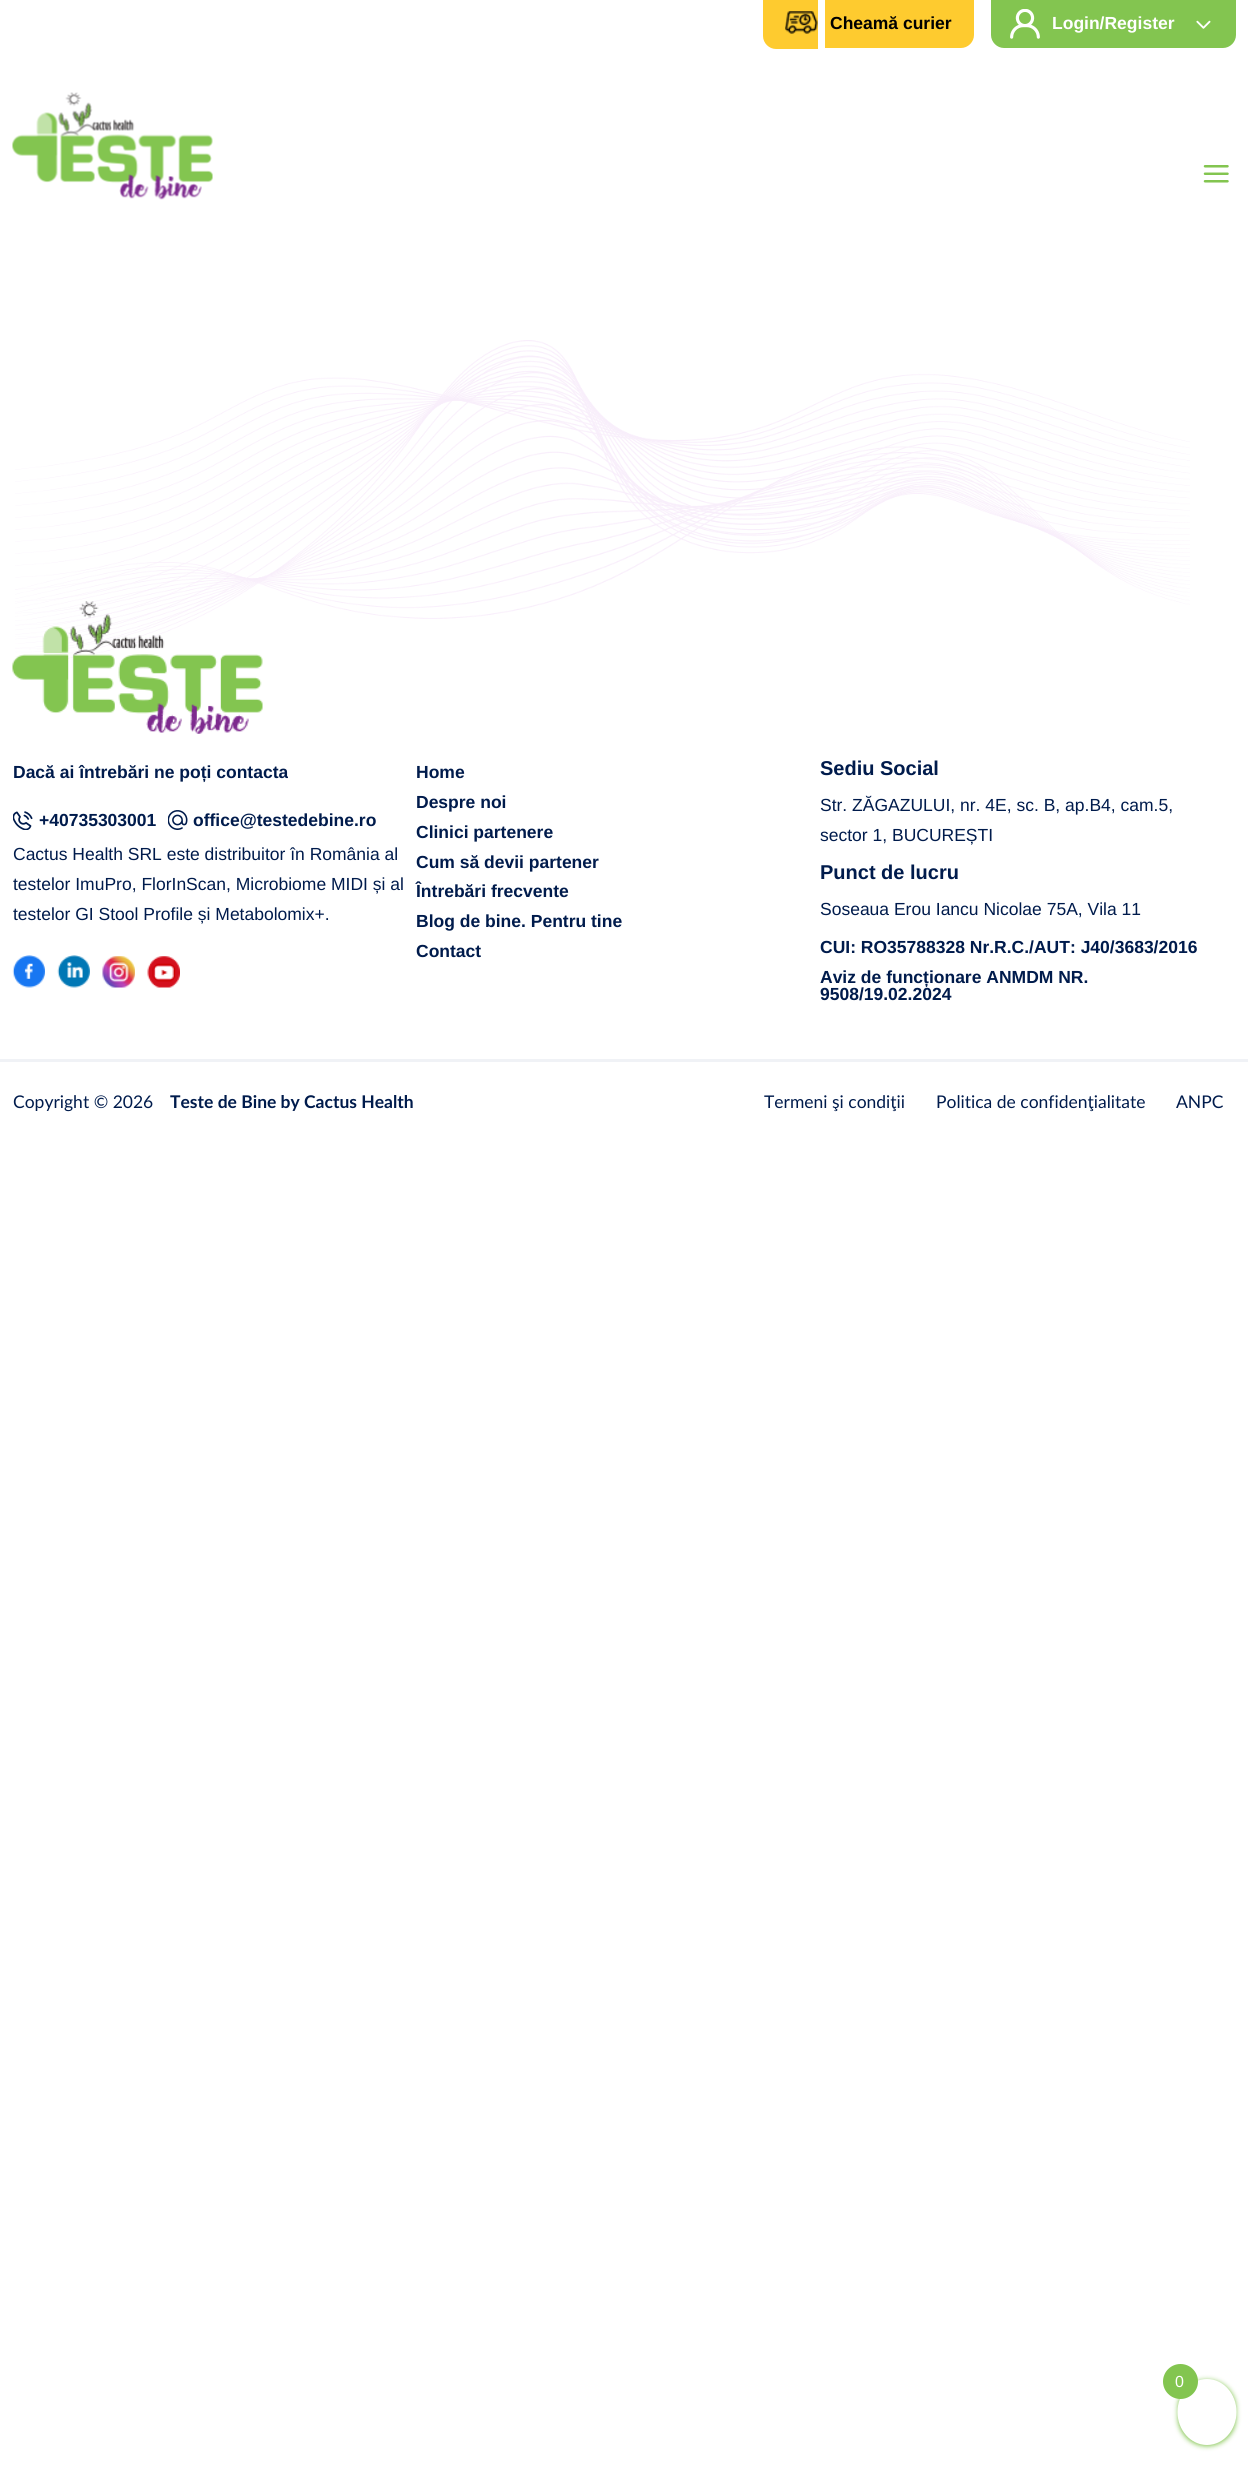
#include <cairo.h>
#include <math.h>
#include <stddef.h>


static void round_rect(cairo_t *cr, double x, double y, double w, double h, double r) {
    cairo_new_sub_path(cr);
    cairo_arc(cr, x + w - r, y + h - r, r, 0, M_PI / 2);
    cairo_arc(cr, x + r, y + h - r, r, M_PI / 2, M_PI);
    cairo_arc(cr, x + r, y + r, r, M_PI, 1.5 * M_PI);
    cairo_arc(cr, x + w - r, y + r, r, 1.5 * M_PI, 2 * M_PI);
    cairo_close_path(cr);
}

static void shadow(cairo_t *cr, double x, double y, double w, double h, double r, double blur, double alpha) {
    cairo_push_group_with_content(cr, CAIRO_CONTENT_ALPHA);
    cairo_set_operator(cr, CAIRO_OPERATOR_SOURCE);
    for (int i = 15; i >= -15 && fmin(w, h) + blur * i / 3 > 0; i -= 2) {
        double e = blur * i / 6;
        cairo_set_source_rgba(cr, 0, 0, 0, alpha * erfc((i - 1) / 8.5) / 2);
        round_rect(cr, x - e, y - e, w + 2 * e, h + 2 * e, fmax(0, fmin(r + e + blur * .6, fmin(w, h) / 2 + e)));
        cairo_fill(cr);
    }
    cairo_pattern_t *soft = cairo_pop_group(cr);
    cairo_mask(cr, soft);
    cairo_pattern_destroy(soft);
}

static void picture(cairo_t *cr, const char *path, double x, double y, double w, double h) {
    cairo_surface_t *image = cairo_image_surface_create_from_png(path);
    cairo_save(cr);
    cairo_set_source_surface(cr, image, x, y);
    cairo_rectangle(cr, x, y, w, h);
    cairo_fill(cr);
    cairo_restore(cr);
    cairo_surface_destroy(image);
}

int main(void) {
    cairo_surface_t *surface = cairo_image_surface_create(CAIRO_FORMAT_RGB24, 1248, 2472);
    cairo_t *cr = cairo_create(surface);
    cairo_font_options_t *options = cairo_font_options_create();
    cairo_font_options_set_hint_metrics(options, CAIRO_HINT_METRICS_OFF);
    cairo_font_options_set_hint_style(options, CAIRO_HINT_STYLE_NONE);
    cairo_set_font_options(cr, options);
    cairo_set_miter_limit(cr, 4);
    cairo_set_source_rgb(cr, 1, 1, 1);
    cairo_paint(cr);
    cairo_set_source_rgb(cr, 0.996, 0.796, 0.184);
    cairo_new_path(cr);
    cairo_move_to(cr, 763, -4);
    cairo_line_to(cr, 818, -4);
    cairo_line_to(cr, 818, 49);
    cairo_line_to(cr, 776, 49);
    cairo_curve_to(cr, 769, 49, 763, 43, 763, 36);
    cairo_close_path(cr);
    cairo_fill(cr);
    picture(cr, "img1.png", 785, 11, 33, 23);
    cairo_new_path(cr);
    cairo_move_to(cr, 825, -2);
    cairo_line_to(cr, 974, -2);
    cairo_line_to(cr, 974, 35);
    cairo_curve_to(cr, 974, 42, 968, 48, 961, 48);
    cairo_line_to(cr, 825, 48);
    cairo_close_path(cr);
    cairo_fill(cr);
    cairo_select_font_face(cr, "Liberation Sans", CAIRO_FONT_SLANT_NORMAL, CAIRO_FONT_WEIGHT_BOLD);
    cairo_set_font_size(cr, 17.5);
    cairo_set_source_rgb(cr, 0, 0, 0);
    cairo_move_to(cr, 830, 29);
    cairo_show_text(cr, "Cheamă curier");
    cairo_set_source_rgb(cr, 0.514, 0.773, 0.314);
    cairo_new_path(cr);
    cairo_move_to(cr, 991, 0);
    cairo_line_to(cr, 1236, 0);
    cairo_line_to(cr, 1236, 35);
    cairo_curve_to(cr, 1236, 42, 1230, 48, 1223, 48);
    cairo_line_to(cr, 1004, 48);
    cairo_curve_to(cr, 997, 48, 991, 42, 991, 35);
    cairo_close_path(cr);
    cairo_fill(cr);
    picture(cr, "img2.png", 1010, 9, 30, 30);
    cairo_set_source_rgb(cr, 1, 1, 1);
    cairo_move_to(cr, 1052, 29);
    cairo_show_text(cr, "Login/Register");
    picture(cr, "img3.png", 1196, 20, 15, 9);
    picture(cr, "img4.png", 12, 92, 201, 108);
    picture(cr, "img5.png", 1203, 165, 26, 18);
    picture(cr, "img6.png", 15, 340, 1175, 319);
    picture(cr, "img7.png", 12, 601, 251, 133);
    cairo_set_source_rgb(cr, 0, 0.106, 0.298);
    cairo_move_to(cr, 13, 778);
    cairo_show_text(cr, "Dacă ai întrebări ne poți contacta");
    picture(cr, "img8.png", 13, 811, 20, 19);
    cairo_move_to(cr, 39, 826);
    cairo_show_text(cr, "+40735303001");
    picture(cr, "img9.png", 168, 810, 20, 20);
    cairo_move_to(cr, 193, 826);
    cairo_show_text(cr, "office@testedebine.ro");
    cairo_select_font_face(cr, "Liberation Sans", CAIRO_FONT_SLANT_NORMAL, CAIRO_FONT_WEIGHT_NORMAL);
    cairo_move_to(cr, 13, 860);
    cairo_show_text(cr, "Cactus Health SRL este distribuitor în România al");
    cairo_move_to(cr, 13, 890);
    cairo_show_text(cr, "testelor ImuPro, FlorInScan, Microbiome MIDI și al");
    cairo_move_to(cr, 13, 920);
    cairo_show_text(cr, "testelor GI Stool Profile și Metabolomix+.");
    picture(cr, "img10.png", 12, 955, 33, 33);
    picture(cr, "img11.png", 57, 955, 33, 33);
    picture(cr, "img12.png", 102, 956, 33, 32);
    picture(cr, "img13.png", 147, 956, 33, 32);
    cairo_select_font_face(cr, "Liberation Sans", CAIRO_FONT_SLANT_NORMAL, CAIRO_FONT_WEIGHT_BOLD);
    cairo_move_to(cr, 416, 778);
    cairo_show_text(cr, "Home");
    cairo_move_to(cr, 416, 808);
    cairo_show_text(cr, "Despre noi");
    cairo_move_to(cr, 416, 838);
    cairo_show_text(cr, "Clinici partenere");
    cairo_move_to(cr, 416, 868);
    cairo_show_text(cr, "Cum să devii partener");
    cairo_move_to(cr, 416, 897);
    cairo_show_text(cr, "Întrebări frecvente");
    cairo_move_to(cr, 416, 927);
    cairo_show_text(cr, "Blog de bine. Pentru tine");
    cairo_move_to(cr, 416, 957);
    cairo_show_text(cr, "Contact");
    cairo_set_font_size(cr, 20);
    cairo_move_to(cr, 820, 775);
    cairo_show_text(cr, "Sediu Social");
    cairo_select_font_face(cr, "Liberation Sans", CAIRO_FONT_SLANT_NORMAL, CAIRO_FONT_WEIGHT_NORMAL);
    cairo_set_font_size(cr, 17.5);
    cairo_move_to(cr, 820, 811);
    cairo_show_text(cr, "Str. ZĂGAZULUI, nr. 4E, sc. B, ap.B4, cam.5,");
    cairo_move_to(cr, 820, 841);
    cairo_show_text(cr, "sector 1, BUCUREȘTI");
    cairo_select_font_face(cr, "Liberation Sans", CAIRO_FONT_SLANT_NORMAL, CAIRO_FONT_WEIGHT_BOLD);
    cairo_set_font_size(cr, 20);
    cairo_move_to(cr, 820, 879);
    cairo_show_text(cr, "Punct de lucru");
    cairo_select_font_face(cr, "Liberation Sans", CAIRO_FONT_SLANT_NORMAL, CAIRO_FONT_WEIGHT_NORMAL);
    cairo_set_font_size(cr, 17.5);
    cairo_move_to(cr, 820, 915);
    cairo_show_text(cr, "Soseaua Erou Iancu Nicolae 75A, Vila 11");
    cairo_select_font_face(cr, "Liberation Sans", CAIRO_FONT_SLANT_NORMAL, CAIRO_FONT_WEIGHT_BOLD);
    cairo_move_to(cr, 820, 953);
    cairo_show_text(cr, "CUI: RO35788328 Nr.R.C./AUT: J40/3683/2016");
    cairo_move_to(cr, 820, 983);
    cairo_show_text(cr, "Aviz de funcționare ANMDM NR.");
    cairo_move_to(cr, 820, 1000);
    cairo_show_text(cr, "9508/19.02.2024");
    cairo_set_source_rgb(cr, 0.941, 0.949, 0.961);
    cairo_rectangle(cr, 0, 1059, 1248, 3);
    cairo_fill(cr);
    cairo_select_font_face(cr, "Lato", CAIRO_FONT_SLANT_NORMAL, CAIRO_FONT_WEIGHT_NORMAL);
    cairo_set_source_rgb(cr, 0, 0.106, 0.298);
    cairo_move_to(cr, 13, 1108);
    cairo_show_text(cr, "Copyright © 2026");
    cairo_select_font_face(cr, "Lato", CAIRO_FONT_SLANT_NORMAL, CAIRO_FONT_WEIGHT_BOLD);
    cairo_move_to(cr, 170, 1108);
    cairo_show_text(cr, "Teste de Bine by Cactus Health");
    cairo_select_font_face(cr, "Lato", CAIRO_FONT_SLANT_NORMAL, CAIRO_FONT_WEIGHT_NORMAL);
    cairo_move_to(cr, 764, 1108);
    cairo_show_text(cr, "Termeni şi condiţii");
    cairo_move_to(cr, 936, 1108);
    cairo_show_text(cr, "Politica de confidenţialitate");
    cairo_move_to(cr, 1176, 1108);
    cairo_show_text(cr, "ANPC");
    cairo_set_source_rgb(cr, 0.514, 0.773, 0.314);
    shadow(cr, 1178, 2380, 58, 66, 29, 2.5, 1);
    cairo_set_source_rgb(cr, 1, 1, 1);
    cairo_new_path(cr);
    cairo_move_to(cr, 1207, 2379);
    cairo_curve_to(cr, 1223.5, 2379, 1236.5, 2394, 1236.5, 2412);
    cairo_curve_to(cr, 1236.5, 2430, 1223.5, 2445, 1207, 2445);
    cairo_curve_to(cr, 1190.5, 2445, 1177.5, 2430, 1177.5, 2412);
    cairo_curve_to(cr, 1177.5, 2394, 1190.5, 2379, 1207, 2379);
    cairo_close_path(cr);
    cairo_fill(cr);
    cairo_set_source_rgb(cr, 0.514, 0.773, 0.314);
    cairo_arc(cr, 1180.5, 2381.5, 17.5, 0, 2 * M_PI);
    cairo_fill(cr);
    cairo_select_font_face(cr, "Liberation Sans", CAIRO_FONT_SLANT_NORMAL, CAIRO_FONT_WEIGHT_NORMAL);
    cairo_set_font_size(cr, 16);
    cairo_set_source_rgb(cr, 1, 1, 1);
    cairo_move_to(cr, 1175, 2387);
    cairo_show_text(cr, "0");
    cairo_surface_write_to_png(surface, "page.png");
    cairo_font_options_destroy(options);
    cairo_destroy(cr);
    cairo_surface_destroy(surface);
    return 0;
}
